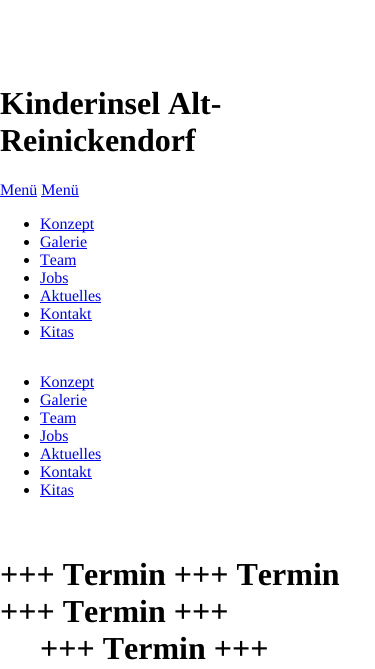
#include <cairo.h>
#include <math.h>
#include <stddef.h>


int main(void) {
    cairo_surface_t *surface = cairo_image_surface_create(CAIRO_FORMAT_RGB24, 375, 669);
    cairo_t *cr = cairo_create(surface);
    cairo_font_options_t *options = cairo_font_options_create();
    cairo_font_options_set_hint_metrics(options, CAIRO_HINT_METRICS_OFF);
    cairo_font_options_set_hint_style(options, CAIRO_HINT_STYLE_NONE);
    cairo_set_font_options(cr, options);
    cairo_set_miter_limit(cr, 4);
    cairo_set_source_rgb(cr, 1, 1, 1);
    cairo_paint(cr);
    cairo_select_font_face(cr, "Liberation Serif", CAIRO_FONT_SLANT_NORMAL, CAIRO_FONT_WEIGHT_BOLD);
    cairo_set_font_size(cr, 32);
    cairo_set_source_rgb(cr, 0, 0, 0);
    cairo_move_to(cr, 0, 114);
    cairo_show_text(cr, "Kinderinsel Alt-");
    cairo_move_to(cr, 0, 151);
    cairo_show_text(cr, "Reinickendorf");
    cairo_select_font_face(cr, "Liberation Serif", CAIRO_FONT_SLANT_NORMAL, CAIRO_FONT_WEIGHT_NORMAL);
    cairo_set_font_size(cr, 16);
    cairo_set_source_rgb(cr, 0, 0, 0.933);
    cairo_move_to(cr, 0, 195);
    cairo_show_text(cr, "Menü Menü");
    cairo_rectangle(cr, 0, 196, 37, 1);
    cairo_fill(cr);
    cairo_rectangle(cr, 41, 196, 38, 1);
    cairo_fill(cr);
    cairo_set_source_rgb(cr, 0, 0, 0);
    cairo_arc(cr, 26.5, 224.5, 2.5, 0, 2 * M_PI);
    cairo_fill(cr);
    cairo_set_source_rgb(cr, 0, 0, 0.933);
    cairo_rectangle(cr, 40, 230, 54, 1);
    cairo_fill(cr);
    cairo_move_to(cr, 40, 229);
    cairo_show_text(cr, "Konzept");
    cairo_set_source_rgb(cr, 0, 0, 0);
    cairo_new_path(cr);
    cairo_arc(cr, 26.5, 242.5, 2.5, 0, 2 * M_PI);
    cairo_fill(cr);
    cairo_set_source_rgb(cr, 0, 0, 0.933);
    cairo_move_to(cr, 40, 247);
    cairo_show_text(cr, "Galerie");
    cairo_rectangle(cr, 40, 248, 47, 1);
    cairo_fill(cr);
    cairo_set_source_rgb(cr, 0, 0, 0);
    cairo_arc(cr, 26.5, 260.5, 2.5, 0, 2 * M_PI);
    cairo_fill(cr);
    cairo_set_source_rgb(cr, 0, 0, 0.933);
    cairo_move_to(cr, 40, 265);
    cairo_show_text(cr, "Team");
    cairo_rectangle(cr, 40, 266, 36, 1);
    cairo_fill(cr);
    cairo_set_source_rgb(cr, 0, 0, 0);
    cairo_arc(cr, 26.5, 278.5, 2.5, 0, 2 * M_PI);
    cairo_fill(cr);
    cairo_set_source_rgb(cr, 0, 0, 0.933);
    cairo_move_to(cr, 40, 283);
    cairo_show_text(cr, "Jobs");
    cairo_rectangle(cr, 40, 284, 28, 1);
    cairo_fill(cr);
    cairo_set_source_rgb(cr, 0, 0, 0);
    cairo_arc(cr, 26.5, 296.5, 2.5, 0, 2 * M_PI);
    cairo_fill(cr);
    cairo_set_source_rgb(cr, 0, 0, 0.933);
    cairo_move_to(cr, 40, 301);
    cairo_show_text(cr, "Aktuelles");
    cairo_rectangle(cr, 40, 302, 61, 1);
    cairo_fill(cr);
    cairo_set_source_rgb(cr, 0, 0, 0);
    cairo_arc(cr, 26.5, 314.5, 2.5, 0, 2 * M_PI);
    cairo_fill(cr);
    cairo_set_source_rgb(cr, 0, 0, 0.933);
    cairo_move_to(cr, 40, 319);
    cairo_show_text(cr, "Kontakt");
    cairo_rectangle(cr, 40, 320, 52, 1);
    cairo_fill(cr);
    cairo_set_source_rgb(cr, 0, 0, 0);
    cairo_arc(cr, 26.5, 332.5, 2.5, 0, 2 * M_PI);
    cairo_fill(cr);
    cairo_set_source_rgb(cr, 0, 0, 0.933);
    cairo_move_to(cr, 40, 337);
    cairo_show_text(cr, "Kitas");
    cairo_rectangle(cr, 40, 338, 34, 1);
    cairo_fill(cr);
    cairo_set_source_rgb(cr, 0, 0, 0);
    cairo_arc(cr, 26.5, 382.5, 2.5, 0, 2 * M_PI);
    cairo_fill(cr);
    cairo_set_source_rgb(cr, 0, 0, 0.933);
    cairo_rectangle(cr, 40, 388, 54, 1);
    cairo_fill(cr);
    cairo_move_to(cr, 40, 387);
    cairo_show_text(cr, "Konzept");
    cairo_set_source_rgb(cr, 0, 0, 0);
    cairo_new_path(cr);
    cairo_arc(cr, 26.5, 400.5, 2.5, 0, 2 * M_PI);
    cairo_fill(cr);
    cairo_set_source_rgb(cr, 0, 0, 0.933);
    cairo_move_to(cr, 40, 405);
    cairo_show_text(cr, "Galerie");
    cairo_rectangle(cr, 40, 406, 47, 1);
    cairo_fill(cr);
    cairo_set_source_rgb(cr, 0, 0, 0);
    cairo_arc(cr, 26.5, 418.5, 2.5, 0, 2 * M_PI);
    cairo_fill(cr);
    cairo_set_source_rgb(cr, 0, 0, 0.933);
    cairo_move_to(cr, 40, 423);
    cairo_show_text(cr, "Team");
    cairo_rectangle(cr, 40, 424, 36, 1);
    cairo_fill(cr);
    cairo_set_source_rgb(cr, 0, 0, 0);
    cairo_arc(cr, 26.5, 436.5, 2.5, 0, 2 * M_PI);
    cairo_fill(cr);
    cairo_set_source_rgb(cr, 0, 0, 0.933);
    cairo_move_to(cr, 40, 441);
    cairo_show_text(cr, "Jobs");
    cairo_rectangle(cr, 40, 442, 28, 1);
    cairo_fill(cr);
    cairo_set_source_rgb(cr, 0, 0, 0);
    cairo_arc(cr, 26.5, 454.5, 2.5, 0, 2 * M_PI);
    cairo_fill(cr);
    cairo_set_source_rgb(cr, 0, 0, 0.933);
    cairo_move_to(cr, 40, 459);
    cairo_show_text(cr, "Aktuelles");
    cairo_rectangle(cr, 40, 460, 61, 1);
    cairo_fill(cr);
    cairo_set_source_rgb(cr, 0, 0, 0);
    cairo_arc(cr, 26.5, 472.5, 2.5, 0, 2 * M_PI);
    cairo_fill(cr);
    cairo_set_source_rgb(cr, 0, 0, 0.933);
    cairo_move_to(cr, 40, 477);
    cairo_show_text(cr, "Kontakt");
    cairo_rectangle(cr, 40, 478, 52, 1);
    cairo_fill(cr);
    cairo_set_source_rgb(cr, 0, 0, 0);
    cairo_arc(cr, 26.5, 490.5, 2.5, 0, 2 * M_PI);
    cairo_fill(cr);
    cairo_set_source_rgb(cr, 0, 0, 0.933);
    cairo_move_to(cr, 40, 495);
    cairo_show_text(cr, "Kitas");
    cairo_rectangle(cr, 40, 496, 34, 1);
    cairo_fill(cr);
    cairo_select_font_face(cr, "Liberation Serif", CAIRO_FONT_SLANT_NORMAL, CAIRO_FONT_WEIGHT_BOLD);
    cairo_set_font_size(cr, 32);
    cairo_set_source_rgb(cr, 0, 0, 0);
    cairo_move_to(cr, 0, 585);
    cairo_show_text(cr, "+++ Termin +++ Termin");
    cairo_move_to(cr, 0, 622);
    cairo_show_text(cr, "+++ Termin +++");
    cairo_move_to(cr, 40, 659);
    cairo_show_text(cr, "+++ Termin +++");
    cairo_surface_write_to_png(surface, "page.png");
    cairo_font_options_destroy(options);
    cairo_destroy(cr);
    cairo_surface_destroy(surface);
    return 0;
}
